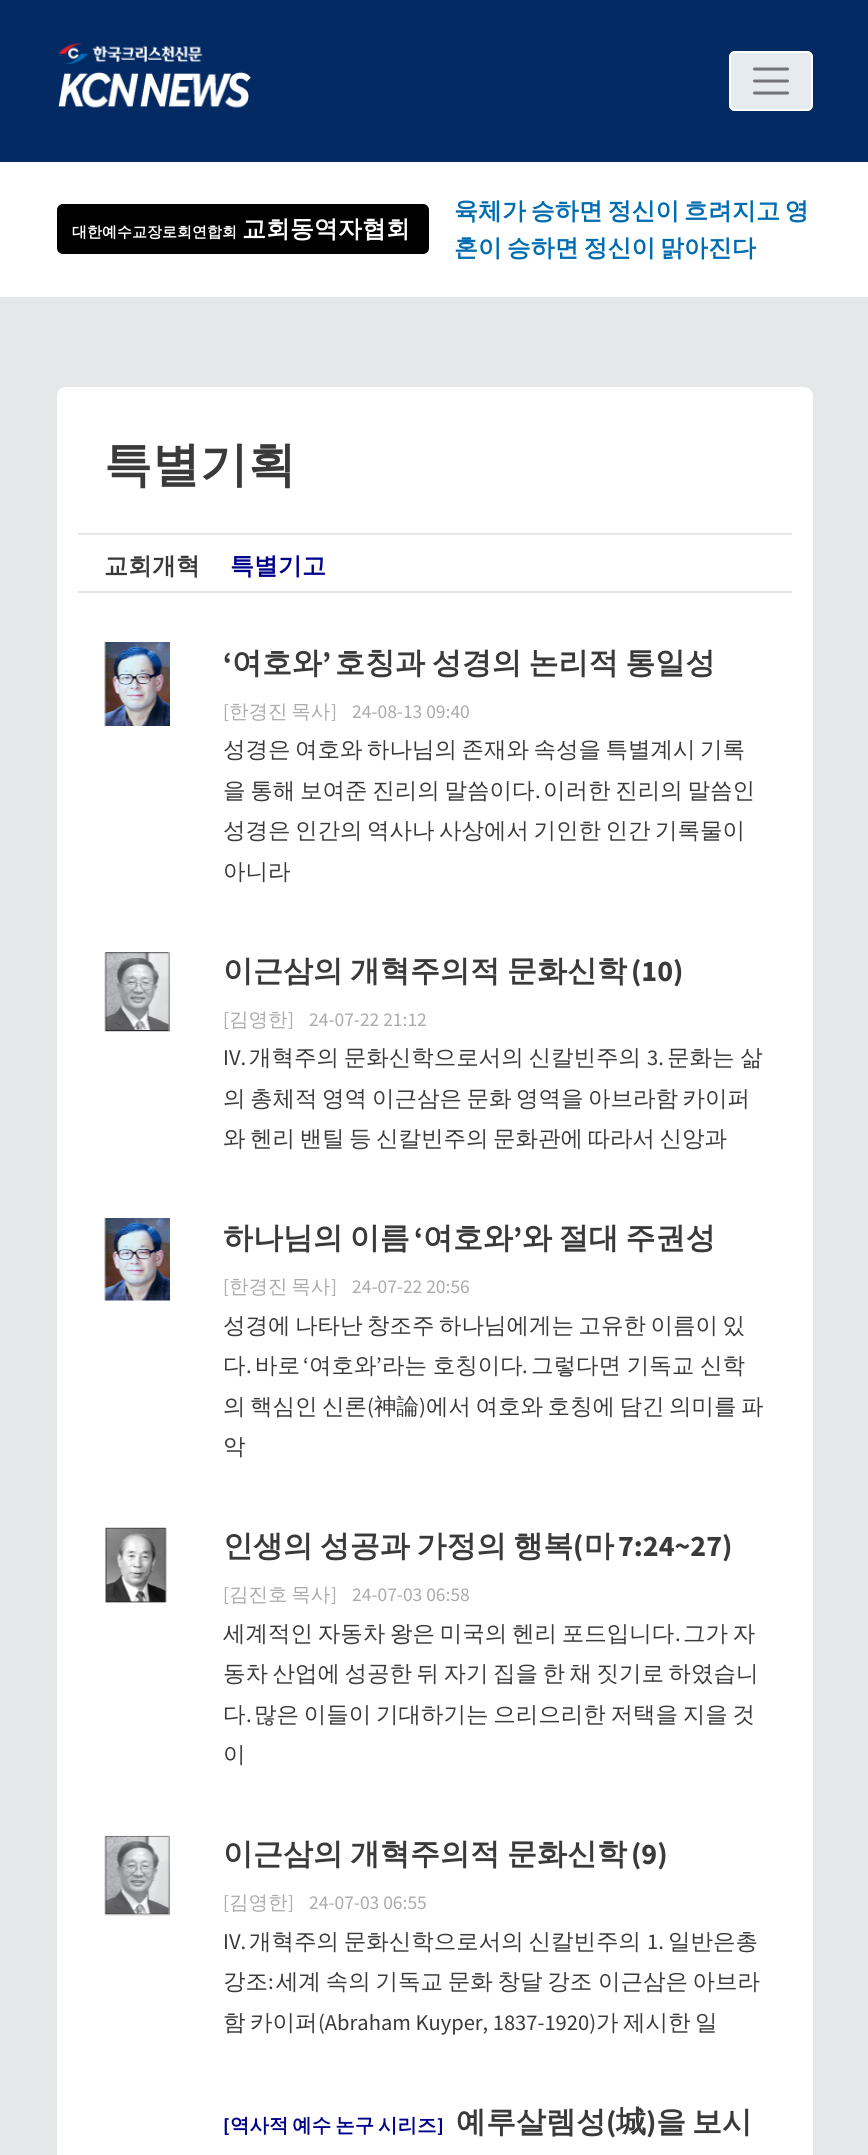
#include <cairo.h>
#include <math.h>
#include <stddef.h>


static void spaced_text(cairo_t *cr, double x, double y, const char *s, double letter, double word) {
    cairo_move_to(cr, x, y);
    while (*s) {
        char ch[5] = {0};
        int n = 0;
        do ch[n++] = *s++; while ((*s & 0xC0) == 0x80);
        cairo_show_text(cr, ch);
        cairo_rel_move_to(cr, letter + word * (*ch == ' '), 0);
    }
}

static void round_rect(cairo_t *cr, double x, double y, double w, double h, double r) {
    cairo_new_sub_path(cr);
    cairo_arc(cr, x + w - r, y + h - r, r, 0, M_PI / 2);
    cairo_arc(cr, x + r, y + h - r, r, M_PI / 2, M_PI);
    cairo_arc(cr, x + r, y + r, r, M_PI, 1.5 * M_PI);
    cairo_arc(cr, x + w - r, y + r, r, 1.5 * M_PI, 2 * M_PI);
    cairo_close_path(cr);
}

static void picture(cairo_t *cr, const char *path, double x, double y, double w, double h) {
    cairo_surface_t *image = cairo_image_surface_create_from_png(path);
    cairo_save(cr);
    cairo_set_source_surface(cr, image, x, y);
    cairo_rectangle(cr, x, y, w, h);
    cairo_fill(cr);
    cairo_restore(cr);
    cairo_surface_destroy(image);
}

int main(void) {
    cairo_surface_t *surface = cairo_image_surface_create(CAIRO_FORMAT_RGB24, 868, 2155);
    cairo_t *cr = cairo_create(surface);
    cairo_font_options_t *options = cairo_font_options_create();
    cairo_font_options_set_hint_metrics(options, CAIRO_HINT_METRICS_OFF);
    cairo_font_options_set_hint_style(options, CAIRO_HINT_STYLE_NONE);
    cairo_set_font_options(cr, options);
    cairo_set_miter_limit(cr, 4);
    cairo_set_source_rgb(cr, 1, 1, 1);
    cairo_paint(cr);
    cairo_set_source_rgb(cr, 0.012, 0.165, 0.388);
    cairo_rectangle(cr, 0, 0, 868, 162);
    cairo_fill(cr);
    picture(cr, "img1.png", 58, 43, 193, 65);
    cairo_set_source_rgb(cr, 0.902, 0.918, 0.937);
    round_rect(cr, 729, 51, 84, 60, 6);
    cairo_fill(cr);
    round_rect(cr, 730, 52, 82, 58, 5);
    cairo_set_source_rgba(cr, 1, 1, 1, 0.9);
    cairo_stroke(cr);
    cairo_new_path(cr);
    cairo_move_to(cr, 754.5, 69);
    cairo_line_to(cr, 787.5, 69);
    cairo_move_to(cr, 754.5, 81);
    cairo_line_to(cr, 787.5, 81);
    cairo_move_to(cr, 754.5, 93);
    cairo_line_to(cr, 787.5, 93);
    cairo_set_source_rgb(cr, 0.451, 0.459, 0.471);
    cairo_set_line_width(cr, 3);
    cairo_set_line_cap(cr, CAIRO_LINE_CAP_ROUND);
    cairo_stroke(cr);
    cairo_set_source_rgb(cr, 0, 0, 0);
    round_rect(cr, 57, 204, 372, 50, 6);
    cairo_fill(cr);
    cairo_select_font_face(cr, "WenQuanYi Zen Hei", CAIRO_FONT_SLANT_NORMAL, CAIRO_FONT_WEIGHT_BOLD);
    cairo_set_font_size(cr, 15);
    cairo_set_source_rgb(cr, 1, 1, 1);
    cairo_move_to(cr, 72, 237);
    cairo_show_text(cr, "대한예수교장로회연합회");
    cairo_set_font_size(cr, 24);
    cairo_move_to(cr, 242, 237);
    cairo_show_text(cr, "교회동역자협회");
    cairo_set_source_rgb(cr, 0, 0.424, 0.69);
    spaced_text(cr, 454, 219, "육체가 승하면 정신이 흐려지고 영", 0, -2.5);
    spaced_text(cr, 454, 256, "혼이 승하면 정신이 맑아진다", 0, -2.5);
    cairo_set_source_rgb(cr, 0.902, 0.906, 0.91);
    cairo_rectangle(cr, 0, 297, 868, 1858);
    cairo_fill(cr);
    cairo_set_source_rgb(cr, 1, 1, 1);
    round_rect(cr, 57, 387, 756, 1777, 9);
    cairo_fill(cr);
    cairo_set_font_size(cr, 48);
    cairo_set_source_rgb(cr, 0.227, 0.227, 0.227);
    cairo_move_to(cr, 104, 481);
    cairo_show_text(cr, "특별기획");
    cairo_set_source_rgb(cr, 0.902, 0.906, 0.91);
    cairo_rectangle(cr, 78, 533, 714, 2);
    cairo_fill(cr);
    cairo_rectangle(cr, 78, 591, 714, 2);
    cairo_fill(cr);
    cairo_set_font_size(cr, 24);
    cairo_set_source_rgb(cr, 0.227, 0.227, 0.227);
    cairo_move_to(cr, 104, 574);
    cairo_show_text(cr, "교회개혁");
    cairo_set_source_rgb(cr, 0, 0, 0.541);
    cairo_move_to(cr, 230, 574);
    cairo_show_text(cr, "특별기고");
    picture(cr, "img2.png", 104, 642, 66, 84);
    cairo_select_font_face(cr, "Source Sans Pro", CAIRO_FONT_SLANT_NORMAL, CAIRO_FONT_WEIGHT_BOLD);
    cairo_set_font_size(cr, 30);
    cairo_set_source_rgb(cr, 0.227, 0.227, 0.227);
    cairo_move_to(cr, 223, 673);
    cairo_show_text(cr, "‘");
    cairo_select_font_face(cr, "WenQuanYi Zen Hei", CAIRO_FONT_SLANT_NORMAL, CAIRO_FONT_WEIGHT_BOLD);
    cairo_move_to(cr, 232, 673);
    cairo_show_text(cr, "여호와");
    cairo_select_font_face(cr, "Source Sans Pro", CAIRO_FONT_SLANT_NORMAL, CAIRO_FONT_WEIGHT_BOLD);
    cairo_move_to(cr, 322, 673);
    cairo_show_text(cr, "’");
    cairo_select_font_face(cr, "WenQuanYi Zen Hei", CAIRO_FONT_SLANT_NORMAL, CAIRO_FONT_WEIGHT_BOLD);
    spaced_text(cr, 335, 673, "호칭과 성경의 논리적 통일성", 0, -2.25);
    cairo_select_font_face(cr, "Source Sans Pro", CAIRO_FONT_SLANT_NORMAL, CAIRO_FONT_WEIGHT_NORMAL);
    cairo_set_font_size(cr, 19.5);
    cairo_set_source_rgb(cr, 0.671, 0.671, 0.675);
    cairo_move_to(cr, 223, 718);
    cairo_show_text(cr, "[");
    cairo_select_font_face(cr, "WenQuanYi Zen Hei Medium", CAIRO_FONT_SLANT_NORMAL, CAIRO_FONT_WEIGHT_NORMAL);
    spaced_text(cr, 229, 718, "한경진 목사", 0, -2);
    cairo_select_font_face(cr, "Source Sans Pro", CAIRO_FONT_SLANT_NORMAL, CAIRO_FONT_WEIGHT_NORMAL);
    cairo_move_to(cr, 331, 718);
    cairo_show_text(cr, "]");
    cairo_move_to(cr, 352, 718);
    cairo_show_text(cr, "24-08-13 09:40");
    cairo_select_font_face(cr, "WenQuanYi Zen Hei Medium", CAIRO_FONT_SLANT_NORMAL, CAIRO_FONT_WEIGHT_NORMAL);
    cairo_set_font_size(cr, 22.5);
    cairo_set_source_rgb(cr, 0.227, 0.227, 0.227);
    spaced_text(cr, 223, 757, "성경은 여호와 하나님의 존재와 속성을 특별계시 기록", 0, -2.25);
    spaced_text(cr, 223, 798, "을 통해 보여준 진리의 말씀이다", 0, -2);
    cairo_select_font_face(cr, "Source Sans Pro", CAIRO_FONT_SLANT_NORMAL, CAIRO_FONT_WEIGHT_NORMAL);
    cairo_move_to(cr, 535, 798);
    cairo_show_text(cr, ".");
    cairo_select_font_face(cr, "WenQuanYi Zen Hei Medium", CAIRO_FONT_SLANT_NORMAL, CAIRO_FONT_WEIGHT_NORMAL);
    spaced_text(cr, 543, 798, "이러한 진리의 말씀인", 0, -2);
    spaced_text(cr, 223, 838, "성경은 인간의 역사나 사상에서 기인한 인간 기록물이", 0, -2.25);
    cairo_move_to(cr, 223, 879);
    cairo_show_text(cr, "아니라");
    picture(cr, "img3.png", 104, 952, 66, 80);
    cairo_select_font_face(cr, "WenQuanYi Zen Hei", CAIRO_FONT_SLANT_NORMAL, CAIRO_FONT_WEIGHT_BOLD);
    cairo_set_font_size(cr, 30);
    spaced_text(cr, 223, 981, "이근삼의 개혁주의적 문화신학", 0, -2);
    cairo_select_font_face(cr, "Source Sans Pro", CAIRO_FONT_SLANT_NORMAL, CAIRO_FONT_WEIGHT_BOLD);
    cairo_move_to(cr, 631, 981);
    cairo_show_text(cr, "(10)");
    cairo_select_font_face(cr, "Source Sans Pro", CAIRO_FONT_SLANT_NORMAL, CAIRO_FONT_WEIGHT_NORMAL);
    cairo_set_font_size(cr, 19.5);
    cairo_set_source_rgb(cr, 0.671, 0.671, 0.675);
    cairo_move_to(cr, 223, 1026);
    cairo_show_text(cr, "[");
    cairo_select_font_face(cr, "WenQuanYi Zen Hei Medium", CAIRO_FONT_SLANT_NORMAL, CAIRO_FONT_WEIGHT_NORMAL);
    cairo_move_to(cr, 229, 1026);
    cairo_show_text(cr, "김영한");
    cairo_select_font_face(cr, "Source Sans Pro", CAIRO_FONT_SLANT_NORMAL, CAIRO_FONT_WEIGHT_NORMAL);
    cairo_move_to(cr, 288, 1026);
    cairo_show_text(cr, "]");
    cairo_move_to(cr, 309, 1026);
    cairo_show_text(cr, "24-07-22 21:12");
    cairo_set_font_size(cr, 22.5);
    cairo_set_source_rgb(cr, 0.227, 0.227, 0.227);
    cairo_move_to(cr, 223, 1065);
    cairo_show_text(cr, "IV.");
    cairo_select_font_face(cr, "WenQuanYi Zen Hei Medium", CAIRO_FONT_SLANT_NORMAL, CAIRO_FONT_WEIGHT_NORMAL);
    spaced_text(cr, 249, 1065, "개혁주의 문화신학으로서의 신칼빈주의", 0, -2);
    cairo_select_font_face(cr, "Source Sans Pro", CAIRO_FONT_SLANT_NORMAL, CAIRO_FONT_WEIGHT_NORMAL);
    cairo_move_to(cr, 647, 1065);
    cairo_show_text(cr, "3.");
    cairo_select_font_face(cr, "WenQuanYi Zen Hei Medium", CAIRO_FONT_SLANT_NORMAL, CAIRO_FONT_WEIGHT_NORMAL);
    spaced_text(cr, 667, 1065, "문화는 삶", 0, -1);
    spaced_text(cr, 223, 1106, "의 총체적 영역", 0, -2.25);
    spaced_text(cr, 372, 1106, "이근삼은 문화 영역을 아브라함 카이퍼", 0, -2.25);
    spaced_text(cr, 223, 1146, "와 헨리 밴틸 등 신칼빈주의 문화관에 따라서 신앙과", 0, -2.25);
    picture(cr, "img4.png", 104, 1218, 66, 83);
    cairo_select_font_face(cr, "WenQuanYi Zen Hei", CAIRO_FONT_SLANT_NORMAL, CAIRO_FONT_WEIGHT_BOLD);
    cairo_set_font_size(cr, 30);
    spaced_text(cr, 223, 1248, "하나님의 이름", 0, -2.25);
    cairo_select_font_face(cr, "Source Sans Pro", CAIRO_FONT_SLANT_NORMAL, CAIRO_FONT_WEIGHT_BOLD);
    cairo_move_to(cr, 414, 1248);
    cairo_show_text(cr, "‘");
    cairo_select_font_face(cr, "WenQuanYi Zen Hei", CAIRO_FONT_SLANT_NORMAL, CAIRO_FONT_WEIGHT_BOLD);
    cairo_move_to(cr, 423, 1248);
    cairo_show_text(cr, "여호와");
    cairo_select_font_face(cr, "Source Sans Pro", CAIRO_FONT_SLANT_NORMAL, CAIRO_FONT_WEIGHT_BOLD);
    cairo_move_to(cr, 513, 1248);
    cairo_show_text(cr, "’");
    cairo_select_font_face(cr, "WenQuanYi Zen Hei", CAIRO_FONT_SLANT_NORMAL, CAIRO_FONT_WEIGHT_BOLD);
    spaced_text(cr, 522, 1248, "와 절대 주권성", 0, -2.25);
    cairo_select_font_face(cr, "Source Sans Pro", CAIRO_FONT_SLANT_NORMAL, CAIRO_FONT_WEIGHT_NORMAL);
    cairo_set_font_size(cr, 19.5);
    cairo_set_source_rgb(cr, 0.671, 0.671, 0.675);
    cairo_move_to(cr, 223, 1293);
    cairo_show_text(cr, "[");
    cairo_select_font_face(cr, "WenQuanYi Zen Hei Medium", CAIRO_FONT_SLANT_NORMAL, CAIRO_FONT_WEIGHT_NORMAL);
    spaced_text(cr, 229, 1293, "한경진 목사", 0, -2);
    cairo_select_font_face(cr, "Source Sans Pro", CAIRO_FONT_SLANT_NORMAL, CAIRO_FONT_WEIGHT_NORMAL);
    cairo_move_to(cr, 331, 1293);
    cairo_show_text(cr, "]");
    cairo_move_to(cr, 352, 1293);
    cairo_show_text(cr, "24-07-22 20:56");
    cairo_select_font_face(cr, "WenQuanYi Zen Hei Medium", CAIRO_FONT_SLANT_NORMAL, CAIRO_FONT_WEIGHT_NORMAL);
    cairo_set_font_size(cr, 22.5);
    cairo_set_source_rgb(cr, 0.227, 0.227, 0.227);
    spaced_text(cr, 223, 1333, "성경에 나타난 창조주 하나님에게는 고유한 이름이 있", 0, -2.25);
    cairo_move_to(cr, 223, 1373);
    cairo_show_text(cr, "다");
    cairo_move_to(cr, 255, 1373);
    cairo_show_text(cr, "바로");
    cairo_select_font_face(cr, "Source Sans Pro", CAIRO_FONT_SLANT_NORMAL, CAIRO_FONT_WEIGHT_NORMAL);
    cairo_move_to(cr, 303, 1373);
    cairo_show_text(cr, "‘");
    cairo_select_font_face(cr, "WenQuanYi Zen Hei Medium", CAIRO_FONT_SLANT_NORMAL, CAIRO_FONT_WEIGHT_NORMAL);
    cairo_move_to(cr, 309, 1373);
    cairo_show_text(cr, "여호와");
    cairo_select_font_face(cr, "Source Sans Pro", CAIRO_FONT_SLANT_NORMAL, CAIRO_FONT_WEIGHT_NORMAL);
    cairo_move_to(cr, 376, 1373);
    cairo_show_text(cr, "’");
    cairo_select_font_face(cr, "WenQuanYi Zen Hei Medium", CAIRO_FONT_SLANT_NORMAL, CAIRO_FONT_WEIGHT_NORMAL);
    spaced_text(cr, 382, 1373, "라는 호칭이다", 0, -1);
    spaced_text(cr, 531, 1373, "그렇다면 기독교 신학", 0, -1);
    cairo_select_font_face(cr, "Source Sans Pro", CAIRO_FONT_SLANT_NORMAL, CAIRO_FONT_WEIGHT_NORMAL);
    cairo_move_to(cr, 246, 1373);
    cairo_show_text(cr, ".");
    cairo_move_to(cr, 522, 1373);
    cairo_show_text(cr, ".");
    cairo_select_font_face(cr, "WenQuanYi Zen Hei Medium", CAIRO_FONT_SLANT_NORMAL, CAIRO_FONT_WEIGHT_NORMAL);
    spaced_text(cr, 223, 1414, "의 핵심인 신론", 0, -2.25);
    cairo_select_font_face(cr, "Source Sans Pro", CAIRO_FONT_SLANT_NORMAL, CAIRO_FONT_WEIGHT_NORMAL);
    cairo_move_to(cr, 367, 1414);
    cairo_show_text(cr, "(");
    cairo_select_font_face(cr, "WenQuanYi Zen Hei Medium", CAIRO_FONT_SLANT_NORMAL, CAIRO_FONT_WEIGHT_NORMAL);
    cairo_move_to(cr, 374, 1414);
    cairo_show_text(cr, "神論");
    cairo_select_font_face(cr, "Source Sans Pro", CAIRO_FONT_SLANT_NORMAL, CAIRO_FONT_WEIGHT_NORMAL);
    cairo_move_to(cr, 419, 1414);
    cairo_show_text(cr, ")");
    cairo_select_font_face(cr, "WenQuanYi Zen Hei Medium", CAIRO_FONT_SLANT_NORMAL, CAIRO_FONT_WEIGHT_NORMAL);
    spaced_text(cr, 426, 1414, "에서 여호와 호칭에 담긴 의미를 파", 0, -2.25);
    cairo_move_to(cr, 223, 1454);
    cairo_show_text(cr, "악");
    picture(cr, "img5.png", 105, 1527, 62, 76);
    cairo_select_font_face(cr, "WenQuanYi Zen Hei", CAIRO_FONT_SLANT_NORMAL, CAIRO_FONT_WEIGHT_BOLD);
    cairo_set_font_size(cr, 30);
    spaced_text(cr, 223, 1556, "인생의 성공과 가정의 행복", 0, -2.25);
    cairo_select_font_face(cr, "Source Sans Pro", CAIRO_FONT_SLANT_NORMAL, CAIRO_FONT_WEIGHT_BOLD);
    cairo_move_to(cr, 573, 1556);
    cairo_show_text(cr, "(");
    cairo_select_font_face(cr, "WenQuanYi Zen Hei", CAIRO_FONT_SLANT_NORMAL, CAIRO_FONT_WEIGHT_BOLD);
    cairo_move_to(cr, 584, 1556);
    cairo_show_text(cr, "마");
    cairo_select_font_face(cr, "Source Sans Pro", CAIRO_FONT_SLANT_NORMAL, CAIRO_FONT_WEIGHT_BOLD);
    cairo_move_to(cr, 618, 1556);
    cairo_show_text(cr, "7:24~27)");
    cairo_select_font_face(cr, "Source Sans Pro", CAIRO_FONT_SLANT_NORMAL, CAIRO_FONT_WEIGHT_NORMAL);
    cairo_set_font_size(cr, 19.5);
    cairo_set_source_rgb(cr, 0.671, 0.671, 0.675);
    cairo_move_to(cr, 223, 1601);
    cairo_show_text(cr, "[");
    cairo_select_font_face(cr, "WenQuanYi Zen Hei Medium", CAIRO_FONT_SLANT_NORMAL, CAIRO_FONT_WEIGHT_NORMAL);
    spaced_text(cr, 229, 1601, "김진호 목사", 0, -2);
    cairo_select_font_face(cr, "Source Sans Pro", CAIRO_FONT_SLANT_NORMAL, CAIRO_FONT_WEIGHT_NORMAL);
    cairo_move_to(cr, 331, 1601);
    cairo_show_text(cr, "]");
    cairo_move_to(cr, 352, 1601);
    cairo_show_text(cr, "24-07-03 06:58");
    cairo_select_font_face(cr, "WenQuanYi Zen Hei Medium", CAIRO_FONT_SLANT_NORMAL, CAIRO_FONT_WEIGHT_NORMAL);
    cairo_set_font_size(cr, 22.5);
    cairo_set_source_rgb(cr, 0.227, 0.227, 0.227);
    spaced_text(cr, 223, 1641, "세계적인 자동차 왕은 미국의 헨리 포드입니다", 0, -2);
    cairo_select_font_face(cr, "Source Sans Pro", CAIRO_FONT_SLANT_NORMAL, CAIRO_FONT_WEIGHT_NORMAL);
    cairo_move_to(cr, 675, 1641);
    cairo_show_text(cr, ".");
    cairo_select_font_face(cr, "WenQuanYi Zen Hei Medium", CAIRO_FONT_SLANT_NORMAL, CAIRO_FONT_WEIGHT_NORMAL);
    spaced_text(cr, 683, 1641, "그가 자", 0, -2);
    spaced_text(cr, 223, 1681, "동차 산업에 성공한 뒤 자기 집을 한 채 짓기로 하였습니", 0, -2.25);
    cairo_move_to(cr, 223, 1722);
    cairo_show_text(cr, "다");
    cairo_select_font_face(cr, "Source Sans Pro", CAIRO_FONT_SLANT_NORMAL, CAIRO_FONT_WEIGHT_NORMAL);
    cairo_move_to(cr, 246, 1722);
    cairo_show_text(cr, ".");
    cairo_select_font_face(cr, "WenQuanYi Zen Hei Medium", CAIRO_FONT_SLANT_NORMAL, CAIRO_FONT_WEIGHT_NORMAL);
    spaced_text(cr, 254, 1722, "많은 이들이 기대하기는 으리으리한 저택을 지을 것", 0, -2);
    cairo_move_to(cr, 223, 1762);
    cairo_show_text(cr, "이");
    picture(cr, "img6.png", 104, 1835, 66, 81);
    cairo_select_font_face(cr, "WenQuanYi Zen Hei", CAIRO_FONT_SLANT_NORMAL, CAIRO_FONT_WEIGHT_BOLD);
    cairo_set_font_size(cr, 30);
    spaced_text(cr, 223, 1864, "이근삼의 개혁주의적 문화신학", 0, -2);
    cairo_select_font_face(cr, "Source Sans Pro", CAIRO_FONT_SLANT_NORMAL, CAIRO_FONT_WEIGHT_BOLD);
    cairo_move_to(cr, 631, 1864);
    cairo_show_text(cr, "(9)");
    cairo_select_font_face(cr, "Source Sans Pro", CAIRO_FONT_SLANT_NORMAL, CAIRO_FONT_WEIGHT_NORMAL);
    cairo_set_font_size(cr, 19.5);
    cairo_set_source_rgb(cr, 0.671, 0.671, 0.675);
    cairo_move_to(cr, 223, 1909);
    cairo_show_text(cr, "[");
    cairo_select_font_face(cr, "WenQuanYi Zen Hei Medium", CAIRO_FONT_SLANT_NORMAL, CAIRO_FONT_WEIGHT_NORMAL);
    cairo_move_to(cr, 229, 1909);
    cairo_show_text(cr, "김영한");
    cairo_select_font_face(cr, "Source Sans Pro", CAIRO_FONT_SLANT_NORMAL, CAIRO_FONT_WEIGHT_NORMAL);
    cairo_move_to(cr, 288, 1909);
    cairo_show_text(cr, "]");
    cairo_move_to(cr, 309, 1909);
    cairo_show_text(cr, "24-07-03 06:55");
    cairo_set_font_size(cr, 22.5);
    cairo_set_source_rgb(cr, 0.227, 0.227, 0.227);
    cairo_move_to(cr, 223, 1949);
    cairo_show_text(cr, "IV.");
    cairo_select_font_face(cr, "WenQuanYi Zen Hei Medium", CAIRO_FONT_SLANT_NORMAL, CAIRO_FONT_WEIGHT_NORMAL);
    spaced_text(cr, 249, 1949, "개혁주의 문화신학으로서의 신칼빈주의", 0, -2);
    cairo_select_font_face(cr, "Source Sans Pro", CAIRO_FONT_SLANT_NORMAL, CAIRO_FONT_WEIGHT_NORMAL);
    cairo_move_to(cr, 647, 1949);
    cairo_show_text(cr, "1.");
    cairo_select_font_face(cr, "WenQuanYi Zen Hei Medium", CAIRO_FONT_SLANT_NORMAL, CAIRO_FONT_WEIGHT_NORMAL);
    cairo_move_to(cr, 668, 1949);
    cairo_show_text(cr, "일반은총");
    cairo_move_to(cr, 223, 1989);
    cairo_show_text(cr, "강조");
    cairo_select_font_face(cr, "Source Sans Pro", CAIRO_FONT_SLANT_NORMAL, CAIRO_FONT_WEIGHT_NORMAL);
    cairo_move_to(cr, 268, 1989);
    cairo_show_text(cr, ":");
    cairo_select_font_face(cr, "WenQuanYi Zen Hei Medium", CAIRO_FONT_SLANT_NORMAL, CAIRO_FONT_WEIGHT_NORMAL);
    spaced_text(cr, 276, 1989, "세계 속의 기독교 문화 창달 강조", 0, -2);
    spaced_text(cr, 598, 1989, "이근삼은 아브라", 0, -2.25);
    cairo_move_to(cr, 223, 2030);
    cairo_show_text(cr, "함");
    cairo_move_to(cr, 250, 2030);
    cairo_show_text(cr, "카이퍼");
    cairo_select_font_face(cr, "Source Sans Pro", CAIRO_FONT_SLANT_NORMAL, CAIRO_FONT_WEIGHT_NORMAL);
    cairo_move_to(cr, 318, 2030);
    cairo_show_text(cr, "(Abraham Kuyper, 1837-1920)");
    cairo_select_font_face(cr, "WenQuanYi Zen Hei Medium", CAIRO_FONT_SLANT_NORMAL, CAIRO_FONT_WEIGHT_NORMAL);
    cairo_move_to(cr, 596, 2030);
    cairo_show_text(cr, "가");
    cairo_move_to(cr, 623, 2030);
    cairo_show_text(cr, "제시한");
    cairo_move_to(cr, 695, 2030);
    cairo_show_text(cr, "일");
    cairo_select_font_face(cr, "Source Sans Pro", CAIRO_FONT_SLANT_NORMAL, CAIRO_FONT_WEIGHT_BOLD);
    cairo_set_font_size(cr, 19.5);
    cairo_set_source_rgb(cr, 0, 0, 0.541);
    cairo_move_to(cr, 223, 2132);
    cairo_show_text(cr, "[");
    cairo_select_font_face(cr, "WenQuanYi Zen Hei", CAIRO_FONT_SLANT_NORMAL, CAIRO_FONT_WEIGHT_BOLD);
    spaced_text(cr, 230, 2132, "역사적 예수 논구 시리즈", 0, -2);
    cairo_select_font_face(cr, "Source Sans Pro", CAIRO_FONT_SLANT_NORMAL, CAIRO_FONT_WEIGHT_BOLD);
    cairo_move_to(cr, 437, 2132);
    cairo_show_text(cr, "]");
    cairo_select_font_face(cr, "WenQuanYi Zen Hei", CAIRO_FONT_SLANT_NORMAL, CAIRO_FONT_WEIGHT_BOLD);
    cairo_set_font_size(cr, 30);
    cairo_set_source_rgb(cr, 0.227, 0.227, 0.227);
    cairo_move_to(cr, 456, 2132);
    cairo_show_text(cr, "예루살렘성");
    cairo_select_font_face(cr, "Source Sans Pro", CAIRO_FONT_SLANT_NORMAL, CAIRO_FONT_WEIGHT_BOLD);
    cairo_move_to(cr, 606, 2132);
    cairo_show_text(cr, "(");
    cairo_select_font_face(cr, "WenQuanYi Zen Hei", CAIRO_FONT_SLANT_NORMAL, CAIRO_FONT_WEIGHT_BOLD);
    cairo_move_to(cr, 616, 2132);
    cairo_show_text(cr, "城");
    cairo_select_font_face(cr, "Source Sans Pro", CAIRO_FONT_SLANT_NORMAL, CAIRO_FONT_WEIGHT_BOLD);
    cairo_move_to(cr, 646, 2132);
    cairo_show_text(cr, ")");
    cairo_select_font_face(cr, "WenQuanYi Zen Hei", CAIRO_FONT_SLANT_NORMAL, CAIRO_FONT_WEIGHT_BOLD);
    spaced_text(cr, 656, 2132, "을 보시", 0, -3);
    cairo_surface_write_to_png(surface, "page.png");
    cairo_font_options_destroy(options);
    cairo_destroy(cr);
    cairo_surface_destroy(surface);
    return 0;
}
